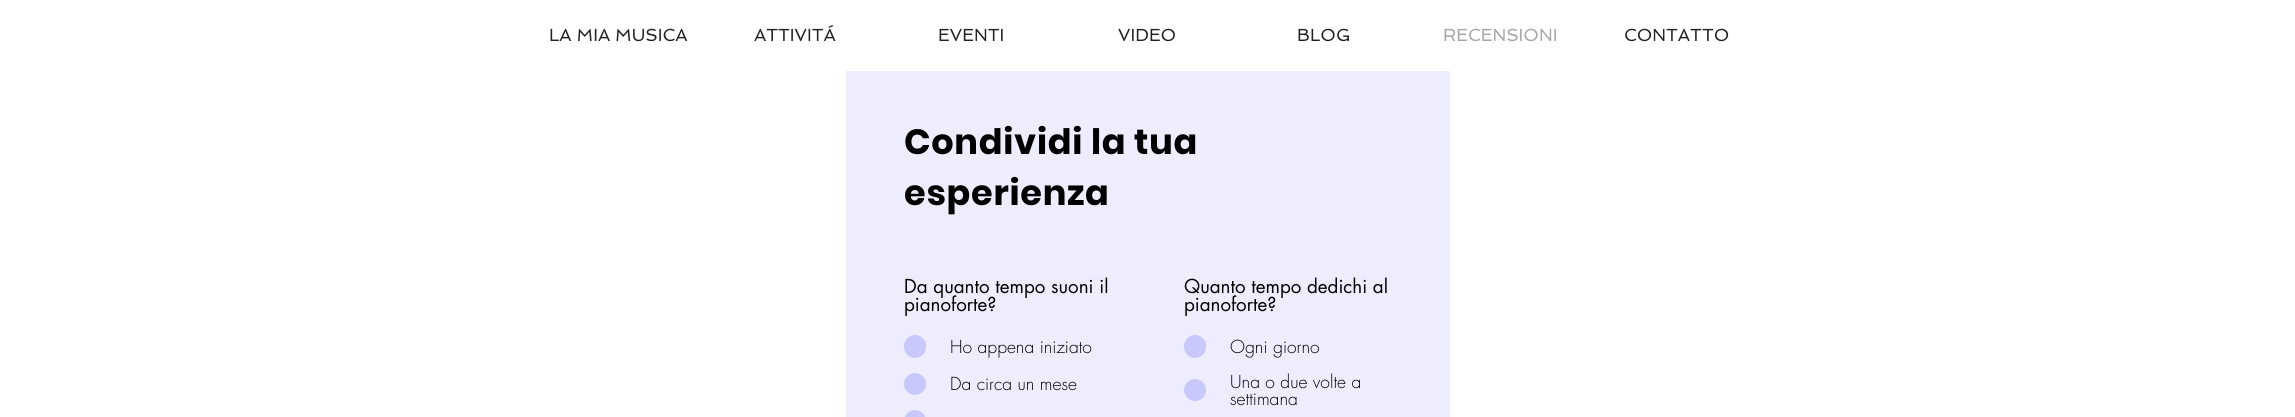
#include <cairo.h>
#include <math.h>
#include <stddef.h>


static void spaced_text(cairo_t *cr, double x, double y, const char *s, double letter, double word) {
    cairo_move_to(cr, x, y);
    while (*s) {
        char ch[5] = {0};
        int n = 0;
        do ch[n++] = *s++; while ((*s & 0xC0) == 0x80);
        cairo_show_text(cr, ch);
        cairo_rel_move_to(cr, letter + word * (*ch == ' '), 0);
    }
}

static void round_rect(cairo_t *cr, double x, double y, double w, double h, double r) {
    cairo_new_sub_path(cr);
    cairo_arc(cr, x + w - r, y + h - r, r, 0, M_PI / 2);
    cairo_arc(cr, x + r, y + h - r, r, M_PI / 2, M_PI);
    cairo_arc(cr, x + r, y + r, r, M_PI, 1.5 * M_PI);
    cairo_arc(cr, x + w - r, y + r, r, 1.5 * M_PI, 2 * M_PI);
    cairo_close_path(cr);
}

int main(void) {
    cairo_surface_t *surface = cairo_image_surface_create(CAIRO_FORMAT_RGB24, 2295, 417);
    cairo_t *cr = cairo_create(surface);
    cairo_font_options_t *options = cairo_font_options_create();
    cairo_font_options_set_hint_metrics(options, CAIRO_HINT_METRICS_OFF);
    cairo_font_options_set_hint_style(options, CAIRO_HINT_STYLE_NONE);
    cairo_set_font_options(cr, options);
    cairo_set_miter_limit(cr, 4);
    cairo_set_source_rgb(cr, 1, 1, 1);
    cairo_paint(cr);
    cairo_select_font_face(cr, "Spinnaker", CAIRO_FONT_SLANT_NORMAL, CAIRO_FONT_WEIGHT_NORMAL);
    cairo_set_font_size(cr, 17.5);
    cairo_set_source_rgb(cr, 0.133, 0.133, 0.133);
    cairo_move_to(cr, 549, 41);
    cairo_show_text(cr, "LA MIA MUSICA");
    cairo_move_to(cr, 754, 41);
    cairo_show_text(cr, "ATTIVITÁ");
    cairo_move_to(cr, 938, 41);
    cairo_show_text(cr, "EVENTI");
    cairo_move_to(cr, 1118, 41);
    cairo_show_text(cr, "VIDEO");
    cairo_move_to(cr, 1297, 41);
    cairo_show_text(cr, "BLOG");
    cairo_set_source_rgb(cr, 0.655, 0.647, 0.647);
    cairo_move_to(cr, 1443, 41);
    cairo_show_text(cr, "RECENSIONI");
    cairo_set_source_rgb(cr, 0.133, 0.133, 0.133);
    cairo_move_to(cr, 1624, 41);
    cairo_show_text(cr, "CONTATTO");
    cairo_set_source_rgb(cr, 0.933, 0.929, 0.992);
    cairo_rectangle(cr, 846, 71, 604, 346);
    cairo_fill(cr);
    cairo_select_font_face(cr, "Poppins", CAIRO_FONT_SLANT_NORMAL, CAIRO_FONT_WEIGHT_BOLD);
    cairo_set_font_size(cr, 35);
    cairo_set_source_rgb(cr, 0, 0, 0);
    spaced_text(cr, 904, 154, "Condividi la tua", 0.75, 0);
    spaced_text(cr, 904, 205, "esperienza", 0.75, 0);
    cairo_select_font_face(cr, "futura", CAIRO_FONT_SLANT_NORMAL, CAIRO_FONT_WEIGHT_NORMAL);
    cairo_set_font_size(cr, 18.75);
    cairo_move_to(cr, 904, 293);
    cairo_show_text(cr, "Da quanto tempo suoni il");
    cairo_move_to(cr, 904, 311);
    cairo_show_text(cr, "pianoforte?");
    cairo_set_source_rgb(cr, 0.788, 0.784, 0.984);
    round_rect(cr, 904, 335, 22, 23, 11);
    cairo_fill(cr);
    cairo_select_font_face(cr, "futura Light", CAIRO_FONT_SLANT_NORMAL, CAIRO_FONT_WEIGHT_NORMAL);
    cairo_set_font_size(cr, 17.5);
    cairo_set_source_rgb(cr, 0, 0, 0);
    cairo_move_to(cr, 950, 353);
    cairo_show_text(cr, "Ho appena iniziato");
    cairo_set_source_rgb(cr, 0.788, 0.784, 0.984);
    cairo_new_path(cr);
    cairo_arc(cr, 915, 384, 11, 0, 2 * M_PI);
    cairo_fill(cr);
    cairo_set_source_rgb(cr, 0, 0, 0);
    cairo_move_to(cr, 950, 390);
    cairo_show_text(cr, "Da circa un mese");
    cairo_set_source_rgb(cr, 0.788, 0.784, 0.984);
    round_rect(cr, 904, 410, 22, 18, 11);
    cairo_fill(cr);
    cairo_select_font_face(cr, "futura", CAIRO_FONT_SLANT_NORMAL, CAIRO_FONT_WEIGHT_NORMAL);
    cairo_set_font_size(cr, 18.75);
    cairo_set_source_rgb(cr, 0, 0, 0);
    cairo_move_to(cr, 1184, 293);
    cairo_show_text(cr, "Quanto tempo dedichi al");
    cairo_move_to(cr, 1184, 311);
    cairo_show_text(cr, "pianoforte?");
    cairo_set_source_rgb(cr, 0.788, 0.784, 0.984);
    round_rect(cr, 1184, 335, 22, 23, 11);
    cairo_fill(cr);
    cairo_select_font_face(cr, "futura Light", CAIRO_FONT_SLANT_NORMAL, CAIRO_FONT_WEIGHT_NORMAL);
    cairo_set_font_size(cr, 17.5);
    cairo_set_source_rgb(cr, 0, 0, 0);
    cairo_move_to(cr, 1230, 353);
    cairo_show_text(cr, "Ogni giorno");
    cairo_set_source_rgb(cr, 0.788, 0.784, 0.984);
    cairo_new_path(cr);
    cairo_arc(cr, 1195, 390, 11, 0, 2 * M_PI);
    cairo_fill(cr);
    cairo_set_source_rgb(cr, 0, 0, 0);
    cairo_move_to(cr, 1230, 388);
    cairo_show_text(cr, "Una o due volte a");
    cairo_move_to(cr, 1230, 405);
    cairo_show_text(cr, "settimana");
    cairo_surface_write_to_png(surface, "page.png");
    cairo_font_options_destroy(options);
    cairo_destroy(cr);
    cairo_surface_destroy(surface);
    return 0;
}
